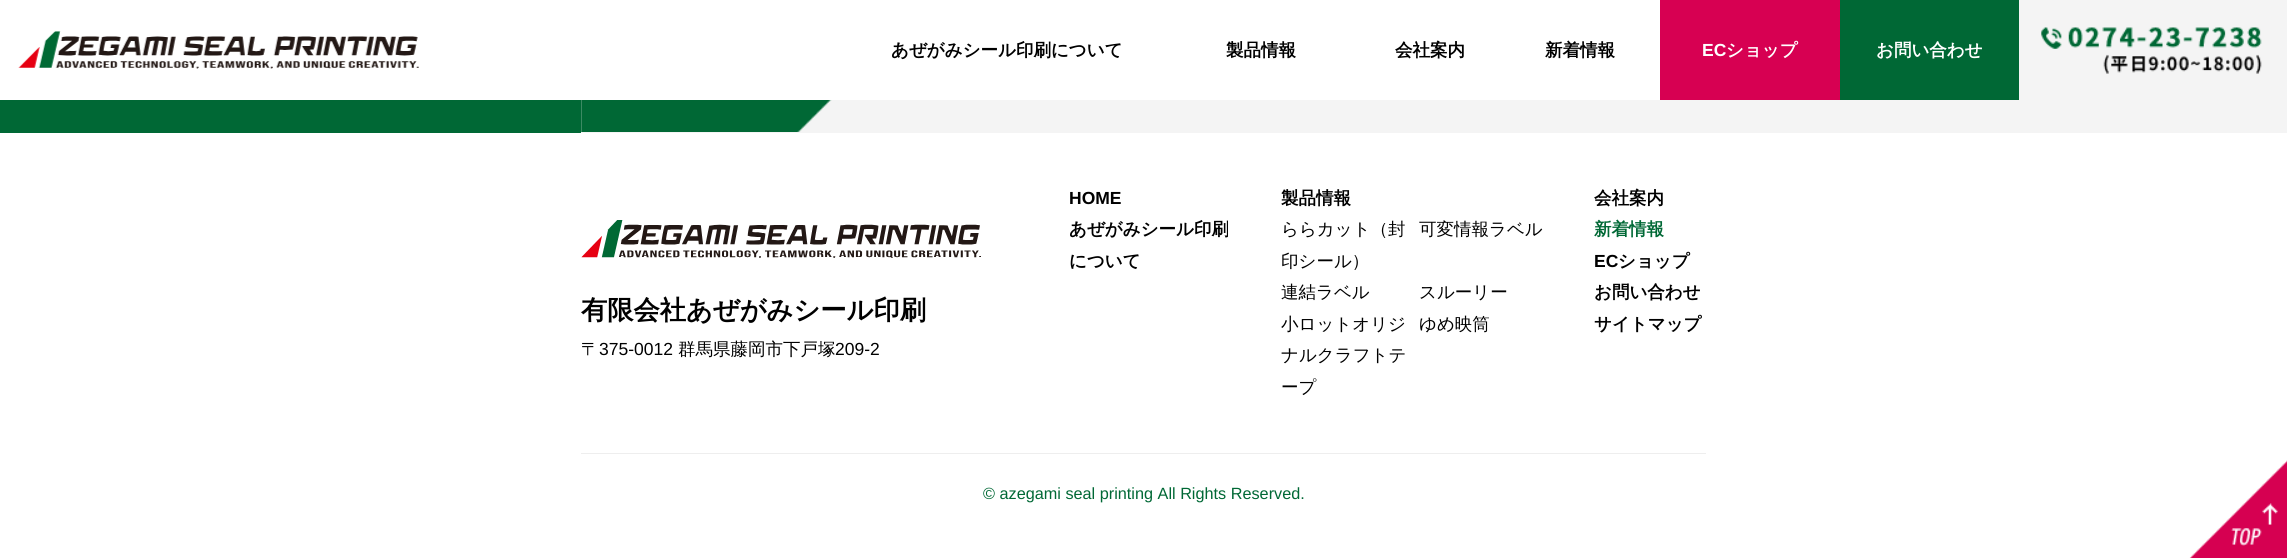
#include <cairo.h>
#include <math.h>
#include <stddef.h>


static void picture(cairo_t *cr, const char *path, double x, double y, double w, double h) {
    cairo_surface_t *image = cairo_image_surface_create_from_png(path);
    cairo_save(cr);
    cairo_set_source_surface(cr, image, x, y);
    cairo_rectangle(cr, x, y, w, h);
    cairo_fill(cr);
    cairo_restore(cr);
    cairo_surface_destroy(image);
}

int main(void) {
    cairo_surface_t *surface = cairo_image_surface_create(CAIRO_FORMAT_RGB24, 2287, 558);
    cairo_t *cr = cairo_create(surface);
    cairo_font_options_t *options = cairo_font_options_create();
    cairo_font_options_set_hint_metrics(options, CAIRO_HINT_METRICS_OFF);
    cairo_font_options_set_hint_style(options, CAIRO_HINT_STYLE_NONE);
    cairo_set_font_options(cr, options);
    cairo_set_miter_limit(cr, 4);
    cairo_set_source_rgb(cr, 1, 1, 1);
    cairo_paint(cr);
    picture(cr, "img1.png", 18, 31, 401, 38);
    cairo_select_font_face(cr, "WenQuanYi Zen Hei", CAIRO_FONT_SLANT_NORMAL, CAIRO_FONT_WEIGHT_BOLD);
    cairo_set_font_size(cr, 17.5);
    cairo_set_source_rgb(cr, 0, 0, 0);
    cairo_move_to(cr, 891, 56);
    cairo_show_text(cr, "あぜがみシール印刷について");
    cairo_move_to(cr, 1226, 56);
    cairo_show_text(cr, "製品情報");
    cairo_move_to(cr, 1395, 56);
    cairo_show_text(cr, "会社案内");
    cairo_move_to(cr, 1545, 56);
    cairo_show_text(cr, "新着情報");
    cairo_set_source_rgb(cr, 0.843, 0, 0.322);
    cairo_rectangle(cr, 1660, 0, 180, 100);
    cairo_fill(cr);
    cairo_select_font_face(cr, "Liberation Sans", CAIRO_FONT_SLANT_NORMAL, CAIRO_FONT_WEIGHT_BOLD);
    cairo_set_source_rgb(cr, 1, 1, 1);
    cairo_move_to(cr, 1702, 56);
    cairo_show_text(cr, "EC");
    cairo_select_font_face(cr, "WenQuanYi Zen Hei", CAIRO_FONT_SLANT_NORMAL, CAIRO_FONT_WEIGHT_BOLD);
    cairo_move_to(cr, 1726, 56);
    cairo_show_text(cr, "ショップ");
    cairo_set_source_rgb(cr, 0, 0.408, 0.208);
    cairo_rectangle(cr, 1840, 0, 179, 100);
    cairo_fill(cr);
    cairo_set_source_rgb(cr, 1, 1, 1);
    cairo_move_to(cr, 1876, 56);
    cairo_show_text(cr, "お問い合わせ");
    cairo_set_source_rgb(cr, 0.957, 0.957, 0.957);
    cairo_rectangle(cr, 2019, 0, 268, 100);
    cairo_fill(cr);
    picture(cr, "img2.png", 2041, 27, 221, 47);
    cairo_rectangle(cr, 581, 100, 1706, 33);
    cairo_fill(cr);
    cairo_set_source_rgb(cr, 0, 0.408, 0.208);
    cairo_rectangle(cr, 0, 100, 581, 33);
    cairo_fill(cr);
    picture(cr, "img3.png", 581, 100, 251, 32);
    picture(cr, "img4.png", 581, 220, 400, 38);
    cairo_set_font_size(cr, 26.25);
    cairo_set_source_rgb(cr, 0, 0, 0);
    cairo_move_to(cr, 581, 319);
    cairo_show_text(cr, "有限会社あぜがみシール印刷");
    cairo_select_font_face(cr, "WenQuanYi Zen Hei Medium", CAIRO_FONT_SLANT_NORMAL, CAIRO_FONT_WEIGHT_NORMAL);
    cairo_set_font_size(cr, 17.5);
    cairo_move_to(cr, 581, 355);
    cairo_show_text(cr, "〒");
    cairo_select_font_face(cr, "Liberation Sans", CAIRO_FONT_SLANT_NORMAL, CAIRO_FONT_WEIGHT_NORMAL);
    cairo_move_to(cr, 599, 355);
    cairo_show_text(cr, "375-0012");
    cairo_select_font_face(cr, "WenQuanYi Zen Hei Medium", CAIRO_FONT_SLANT_NORMAL, CAIRO_FONT_WEIGHT_NORMAL);
    cairo_move_to(cr, 678, 355);
    cairo_show_text(cr, "群馬県藤岡市下戸塚");
    cairo_select_font_face(cr, "Liberation Sans", CAIRO_FONT_SLANT_NORMAL, CAIRO_FONT_WEIGHT_NORMAL);
    cairo_move_to(cr, 835, 355);
    cairo_show_text(cr, "209-2");
    cairo_select_font_face(cr, "Liberation Sans", CAIRO_FONT_SLANT_NORMAL, CAIRO_FONT_WEIGHT_BOLD);
    cairo_move_to(cr, 1069, 204);
    cairo_show_text(cr, "HOME");
    cairo_select_font_face(cr, "WenQuanYi Zen Hei", CAIRO_FONT_SLANT_NORMAL, CAIRO_FONT_WEIGHT_BOLD);
    cairo_move_to(cr, 1069, 235);
    cairo_show_text(cr, "あぜがみシール印刷");
    cairo_move_to(cr, 1069, 267);
    cairo_show_text(cr, "について");
    cairo_move_to(cr, 1281, 204);
    cairo_show_text(cr, "製品情報");
    cairo_select_font_face(cr, "WenQuanYi Zen Hei Medium", CAIRO_FONT_SLANT_NORMAL, CAIRO_FONT_WEIGHT_NORMAL);
    cairo_move_to(cr, 1281, 235);
    cairo_show_text(cr, "ららカット（封");
    cairo_move_to(cr, 1281, 267);
    cairo_show_text(cr, "印シール）");
    cairo_move_to(cr, 1419, 235);
    cairo_show_text(cr, "可変情報ラベル");
    cairo_move_to(cr, 1281, 298);
    cairo_show_text(cr, "連結ラベル");
    cairo_move_to(cr, 1419, 298);
    cairo_show_text(cr, "スルーリー");
    cairo_move_to(cr, 1281, 330);
    cairo_show_text(cr, "小ロットオリジ");
    cairo_move_to(cr, 1281, 361);
    cairo_show_text(cr, "ナルクラフトテ");
    cairo_move_to(cr, 1281, 393);
    cairo_show_text(cr, "ープ");
    cairo_move_to(cr, 1419, 330);
    cairo_show_text(cr, "ゆめ映筒");
    cairo_select_font_face(cr, "WenQuanYi Zen Hei", CAIRO_FONT_SLANT_NORMAL, CAIRO_FONT_WEIGHT_BOLD);
    cairo_move_to(cr, 1594, 204);
    cairo_show_text(cr, "会社案内");
    cairo_set_source_rgb(cr, 0, 0.408, 0.208);
    cairo_move_to(cr, 1594, 235);
    cairo_show_text(cr, "新着情報");
    cairo_select_font_face(cr, "Liberation Sans", CAIRO_FONT_SLANT_NORMAL, CAIRO_FONT_WEIGHT_BOLD);
    cairo_set_source_rgb(cr, 0, 0, 0);
    cairo_move_to(cr, 1594, 267);
    cairo_show_text(cr, "EC");
    cairo_select_font_face(cr, "WenQuanYi Zen Hei", CAIRO_FONT_SLANT_NORMAL, CAIRO_FONT_WEIGHT_BOLD);
    cairo_move_to(cr, 1618, 267);
    cairo_show_text(cr, "ショップ");
    cairo_move_to(cr, 1594, 298);
    cairo_show_text(cr, "お問い合わせ");
    cairo_move_to(cr, 1594, 330);
    cairo_show_text(cr, "サイトマップ");
    cairo_set_source_rgb(cr, 0.933, 0.933, 0.933);
    cairo_rectangle(cr, 581, 453, 1125, 1);
    cairo_fill(cr);
    cairo_select_font_face(cr, "Liberation Sans", CAIRO_FONT_SLANT_NORMAL, CAIRO_FONT_WEIGHT_NORMAL);
    cairo_set_font_size(cr, 16.25);
    cairo_set_source_rgb(cr, 0, 0.408, 0.208);
    cairo_move_to(cr, 983, 499);
    cairo_show_text(cr, "© azegami seal printing All Rights Reserved.");
    picture(cr, "img5.png", 2189, 460, 98, 98);
    cairo_surface_write_to_png(surface, "page.png");
    cairo_font_options_destroy(options);
    cairo_destroy(cr);
    cairo_surface_destroy(surface);
    return 0;
}
